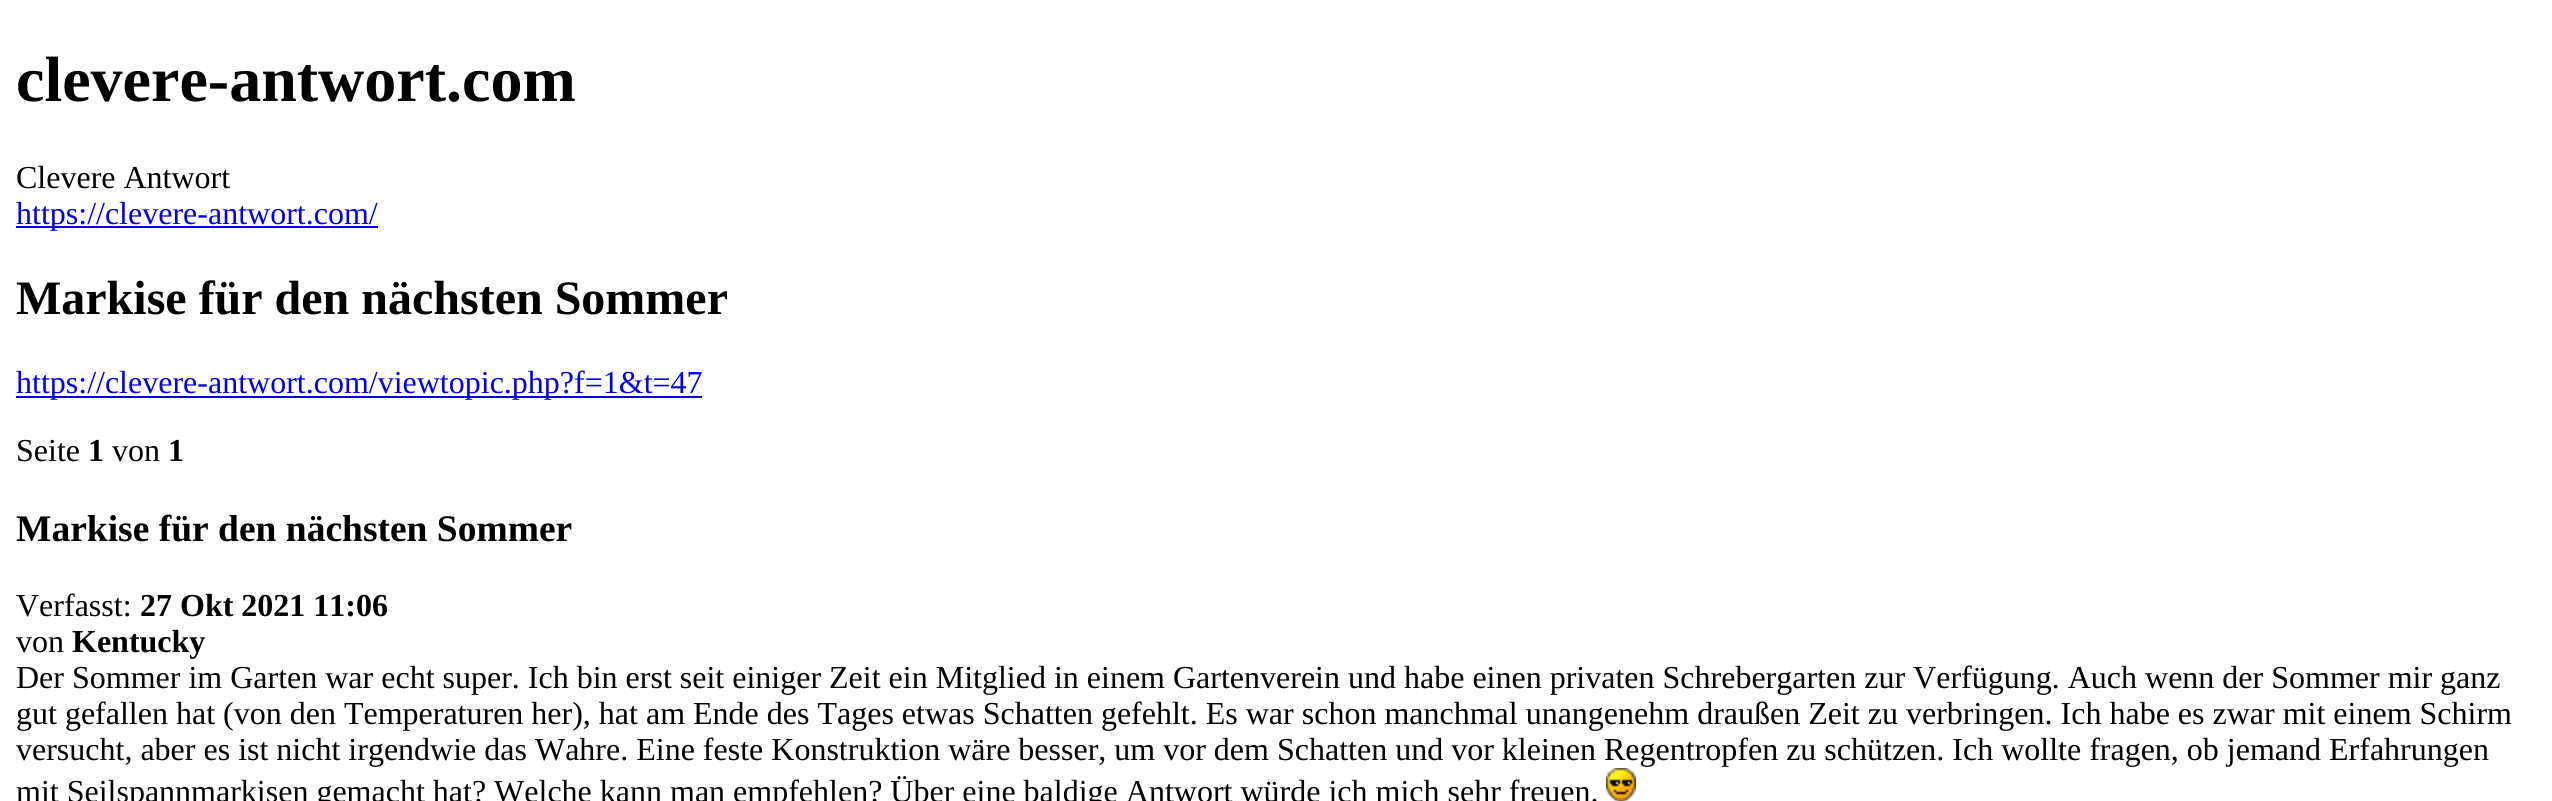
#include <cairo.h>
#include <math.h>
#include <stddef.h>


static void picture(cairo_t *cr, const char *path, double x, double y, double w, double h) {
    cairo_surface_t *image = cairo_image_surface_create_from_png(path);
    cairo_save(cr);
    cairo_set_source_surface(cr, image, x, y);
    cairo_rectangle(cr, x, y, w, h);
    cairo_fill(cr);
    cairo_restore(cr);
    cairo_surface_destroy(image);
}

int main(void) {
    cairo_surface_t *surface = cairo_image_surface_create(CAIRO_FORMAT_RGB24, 2552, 801);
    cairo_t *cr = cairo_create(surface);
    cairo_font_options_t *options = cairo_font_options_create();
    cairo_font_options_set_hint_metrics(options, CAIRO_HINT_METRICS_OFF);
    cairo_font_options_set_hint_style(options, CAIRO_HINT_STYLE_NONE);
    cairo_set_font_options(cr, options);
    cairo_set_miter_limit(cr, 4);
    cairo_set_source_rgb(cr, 1, 1, 1);
    cairo_paint(cr);
    cairo_select_font_face(cr, "Liberation Serif", CAIRO_FONT_SLANT_NORMAL, CAIRO_FONT_WEIGHT_BOLD);
    cairo_set_font_size(cr, 64);
    cairo_set_source_rgb(cr, 0, 0, 0);
    cairo_move_to(cr, 16, 101);
    cairo_show_text(cr, "clevere-antwort.com");
    cairo_select_font_face(cr, "Liberation Serif", CAIRO_FONT_SLANT_NORMAL, CAIRO_FONT_WEIGHT_NORMAL);
    cairo_set_font_size(cr, 32);
    cairo_move_to(cr, 16, 188);
    cairo_show_text(cr, "Clevere Antwort");
    cairo_set_source_rgb(cr, 0, 0, 0.933);
    cairo_rectangle(cr, 16, 226, 362, 2);
    cairo_fill(cr);
    cairo_move_to(cr, 16, 224);
    cairo_show_text(cr, "https://clevere-antwort.com/");
    cairo_select_font_face(cr, "Liberation Serif", CAIRO_FONT_SLANT_NORMAL, CAIRO_FONT_WEIGHT_BOLD);
    cairo_set_font_size(cr, 48);
    cairo_set_source_rgb(cr, 0, 0, 0);
    cairo_move_to(cr, 16, 314);
    cairo_show_text(cr, "Markise für den nächsten Sommer");
    cairo_set_source_rgb(cr, 0, 0, 0.933);
    cairo_rectangle(cr, 16, 396, 686, 2);
    cairo_fill(cr);
    cairo_select_font_face(cr, "Liberation Serif", CAIRO_FONT_SLANT_NORMAL, CAIRO_FONT_WEIGHT_NORMAL);
    cairo_set_font_size(cr, 32);
    cairo_move_to(cr, 16, 393);
    cairo_show_text(cr, "https://clevere-antwort.com/viewtopic.php?f=1&t=47");
    cairo_set_source_rgb(cr, 0, 0, 0);
    cairo_move_to(cr, 16, 461);
    cairo_show_text(cr, "Seite");
    cairo_select_font_face(cr, "Liberation Serif", CAIRO_FONT_SLANT_NORMAL, CAIRO_FONT_WEIGHT_BOLD);
    cairo_move_to(cr, 88, 461);
    cairo_show_text(cr, "1");
    cairo_select_font_face(cr, "Liberation Serif", CAIRO_FONT_SLANT_NORMAL, CAIRO_FONT_WEIGHT_NORMAL);
    cairo_move_to(cr, 112, 461);
    cairo_show_text(cr, "von");
    cairo_select_font_face(cr, "Liberation Serif", CAIRO_FONT_SLANT_NORMAL, CAIRO_FONT_WEIGHT_BOLD);
    cairo_move_to(cr, 168, 461);
    cairo_show_text(cr, "1");
    cairo_set_font_size(cr, 37.5);
    cairo_move_to(cr, 16, 541);
    cairo_show_text(cr, "Markise für den nächsten Sommer");
    cairo_select_font_face(cr, "Liberation Serif", CAIRO_FONT_SLANT_NORMAL, CAIRO_FONT_WEIGHT_NORMAL);
    cairo_set_font_size(cr, 32);
    cairo_move_to(cr, 16, 616);
    cairo_show_text(cr, "Verfasst:");
    cairo_select_font_face(cr, "Liberation Serif", CAIRO_FONT_SLANT_NORMAL, CAIRO_FONT_WEIGHT_BOLD);
    cairo_move_to(cr, 140, 616);
    cairo_show_text(cr, "27 Okt 2021 11:06");
    cairo_select_font_face(cr, "Liberation Serif", CAIRO_FONT_SLANT_NORMAL, CAIRO_FONT_WEIGHT_NORMAL);
    cairo_move_to(cr, 16, 652);
    cairo_show_text(cr, "von");
    cairo_select_font_face(cr, "Liberation Serif", CAIRO_FONT_SLANT_NORMAL, CAIRO_FONT_WEIGHT_BOLD);
    cairo_move_to(cr, 72, 652);
    cairo_show_text(cr, "Kentucky");
    cairo_select_font_face(cr, "Liberation Serif", CAIRO_FONT_SLANT_NORMAL, CAIRO_FONT_WEIGHT_NORMAL);
    cairo_move_to(cr, 16, 688);
    cairo_show_text(cr, "Der Sommer im Garten war echt super. Ich bin erst seit einiger Zeit ein Mitglied in einem Gartenverein und habe einen privaten Schrebergarten zur Verfügung. Auch wenn der Sommer mir ganz");
    cairo_move_to(cr, 16, 724);
    cairo_show_text(cr, "gut gefallen hat (von den Temperaturen her), hat am Ende des Tages etwas Schatten gefehlt. Es war schon manchmal unangenehm draußen Zeit zu verbringen. Ich habe es zwar mit einem Schirm");
    cairo_move_to(cr, 16, 760);
    cairo_show_text(cr, "versucht, aber es ist nicht irgendwie das Wahre. Eine feste Konstruktion wäre besser, um vor dem Schatten und vor kleinen Regentropfen zu schützen. Ich wollte fragen, ob jemand Erfahrungen");
    cairo_move_to(cr, 16, 802);
    cairo_show_text(cr, "mit Seilspannmarkisen gemacht hat? Welche kann man empfehlen? Über eine baldige Antwort würde ich mich sehr freuen.");
    picture(cr, "img1.png", 1606, 768, 30, 33);
    cairo_surface_write_to_png(surface, "page.png");
    cairo_font_options_destroy(options);
    cairo_destroy(cr);
    cairo_surface_destroy(surface);
    return 0;
}
